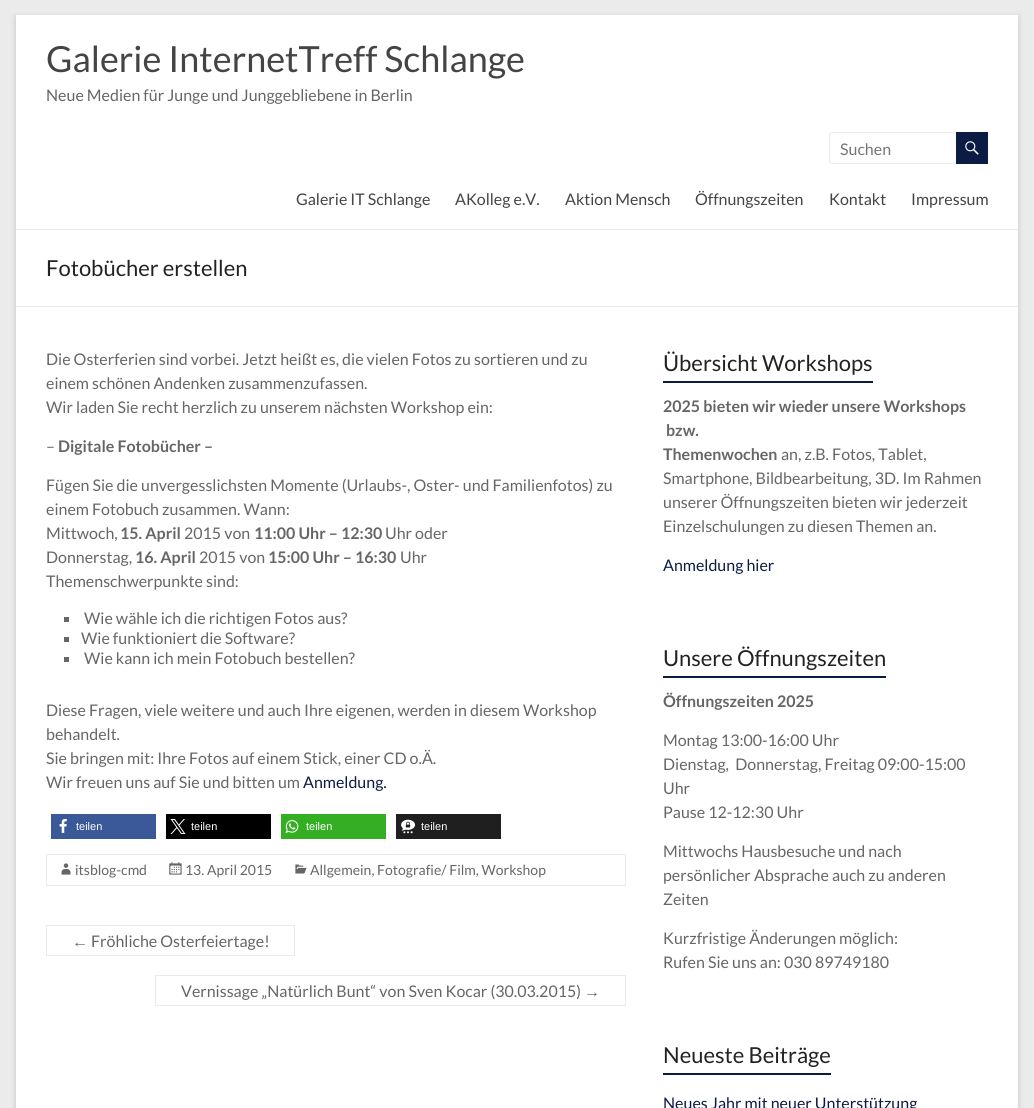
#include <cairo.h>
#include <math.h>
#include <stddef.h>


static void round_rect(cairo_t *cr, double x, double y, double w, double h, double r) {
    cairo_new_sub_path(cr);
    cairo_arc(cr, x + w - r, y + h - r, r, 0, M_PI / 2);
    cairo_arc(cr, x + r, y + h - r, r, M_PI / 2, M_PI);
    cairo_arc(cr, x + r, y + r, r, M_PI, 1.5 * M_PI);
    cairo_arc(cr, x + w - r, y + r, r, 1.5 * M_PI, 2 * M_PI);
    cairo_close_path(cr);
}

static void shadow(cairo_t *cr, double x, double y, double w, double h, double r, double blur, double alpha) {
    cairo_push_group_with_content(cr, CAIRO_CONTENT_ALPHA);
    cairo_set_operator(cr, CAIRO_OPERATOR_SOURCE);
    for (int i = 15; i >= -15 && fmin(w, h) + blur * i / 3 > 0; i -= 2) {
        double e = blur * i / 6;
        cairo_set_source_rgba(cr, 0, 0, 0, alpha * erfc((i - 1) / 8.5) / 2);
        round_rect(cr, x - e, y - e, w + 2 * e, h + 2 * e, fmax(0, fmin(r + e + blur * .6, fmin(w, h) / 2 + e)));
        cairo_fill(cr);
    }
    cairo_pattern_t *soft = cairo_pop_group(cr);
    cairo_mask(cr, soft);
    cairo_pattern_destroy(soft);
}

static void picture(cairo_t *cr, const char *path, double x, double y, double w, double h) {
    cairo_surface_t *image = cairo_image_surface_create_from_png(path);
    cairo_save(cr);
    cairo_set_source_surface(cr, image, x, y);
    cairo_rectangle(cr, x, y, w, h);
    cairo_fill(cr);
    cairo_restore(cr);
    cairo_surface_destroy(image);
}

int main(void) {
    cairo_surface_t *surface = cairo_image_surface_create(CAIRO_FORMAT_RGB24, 1034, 1108);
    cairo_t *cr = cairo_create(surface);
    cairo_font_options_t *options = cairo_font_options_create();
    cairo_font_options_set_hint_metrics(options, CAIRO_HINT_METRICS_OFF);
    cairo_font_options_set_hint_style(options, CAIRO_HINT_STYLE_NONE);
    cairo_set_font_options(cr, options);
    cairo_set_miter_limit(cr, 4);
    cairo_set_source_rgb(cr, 0.918, 0.918, 0.918);
    cairo_paint(cr);
    cairo_set_source_rgb(cr, 0.392, 0.392, 0.392);
    shadow(cr, 16, 17, 1002, 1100, 0, 3, 0.3);
    cairo_set_source_rgb(cr, 1, 1, 1);
    cairo_rectangle(cr, 16, 15, 1002, 1093);
    cairo_fill(cr);
    cairo_set_source_rgb(cr, 0.918, 0.918, 0.918);
    cairo_rectangle(cr, 16, 229, 1002, 1);
    cairo_fill(cr);
    cairo_select_font_face(cr, "Lato", CAIRO_FONT_SLANT_NORMAL, CAIRO_FONT_WEIGHT_NORMAL);
    cairo_set_font_size(cr, 36);
    cairo_set_source_rgb(cr, 0.267, 0.267, 0.267);
    cairo_move_to(cr, 46, 72);
    cairo_show_text(cr, "Galerie InternetTreff Schlange");
    cairo_set_font_size(cr, 16);
    cairo_set_source_rgb(cr, 0.4, 0.4, 0.4);
    cairo_move_to(cr, 46, 101);
    cairo_show_text(cr, "Neue Medien für Junge und Junggebliebene in Berlin");
    round_rect(cr, 829.5, 132.5, 129, 31, 2.5);
    cairo_set_source_rgb(cr, 0.918, 0.918, 0.918);
    cairo_set_line_width(cr, 1);
    cairo_stroke(cr);
    cairo_set_source_rgb(cr, 0.459, 0.459, 0.459);
    cairo_move_to(cr, 840, 155);
    cairo_show_text(cr, "Suchen");
    cairo_set_source_rgb(cr, 0.043, 0.106, 0.267);
    cairo_rectangle(cr, 956, 132, 32, 32);
    cairo_fill(cr);
    picture(cr, "img1.png", 965, 141, 14, 14);
    cairo_set_source_rgb(cr, 0.267, 0.267, 0.267);
    cairo_move_to(cr, 296, 205);
    cairo_show_text(cr, "Galerie IT Schlange");
    cairo_move_to(cr, 455, 205);
    cairo_show_text(cr, "AKolleg e.V.");
    cairo_move_to(cr, 565, 205);
    cairo_show_text(cr, "Aktion Mensch");
    cairo_move_to(cr, 695, 205);
    cairo_show_text(cr, "Öffnungszeiten");
    cairo_move_to(cr, 829, 205);
    cairo_show_text(cr, "Kontakt");
    cairo_move_to(cr, 911, 205);
    cairo_show_text(cr, "Impressum");
    cairo_set_source_rgb(cr, 0.918, 0.918, 0.918);
    cairo_rectangle(cr, 16, 306, 1002, 1);
    cairo_fill(cr);
    cairo_set_font_size(cr, 22);
    cairo_set_source_rgb(cr, 0.133, 0.133, 0.133);
    cairo_move_to(cr, 46, 276);
    cairo_show_text(cr, "Fotobücher erstellen");
    cairo_set_font_size(cr, 16);
    cairo_set_source_rgb(cr, 0.4, 0.4, 0.4);
    cairo_move_to(cr, 46, 365);
    cairo_show_text(cr, "Die Osterferien sind vorbei. Jetzt heißt es, die vielen Fotos zu sortieren und zu");
    cairo_move_to(cr, 46, 389);
    cairo_show_text(cr, "einem schönen Andenken zusammenzufassen.");
    cairo_move_to(cr, 46, 413);
    cairo_show_text(cr, "Wir laden Sie recht herzlich zu unserem nächsten Workshop ein:");
    cairo_move_to(cr, 46, 452);
    cairo_show_text(cr, "–");
    cairo_select_font_face(cr, "Lato", CAIRO_FONT_SLANT_NORMAL, CAIRO_FONT_WEIGHT_BOLD);
    cairo_move_to(cr, 58, 452);
    cairo_show_text(cr, "Digitale Fotobücher –");
    cairo_select_font_face(cr, "Lato", CAIRO_FONT_SLANT_NORMAL, CAIRO_FONT_WEIGHT_NORMAL);
    cairo_move_to(cr, 46, 491);
    cairo_show_text(cr, "Fügen Sie die unvergesslichsten Momente (Urlaubs-, Oster- und Familienfotos) zu");
    cairo_move_to(cr, 46, 515);
    cairo_show_text(cr, "einem Fotobuch zusammen. Wann:");
    cairo_move_to(cr, 46, 539);
    cairo_show_text(cr, "Mittwoch,");
    cairo_select_font_face(cr, "Lato", CAIRO_FONT_SLANT_NORMAL, CAIRO_FONT_WEIGHT_BOLD);
    cairo_move_to(cr, 120, 539);
    cairo_show_text(cr, "15. April");
    cairo_select_font_face(cr, "Lato", CAIRO_FONT_SLANT_NORMAL, CAIRO_FONT_WEIGHT_NORMAL);
    cairo_move_to(cr, 184, 539);
    cairo_show_text(cr, "2015 von");
    cairo_select_font_face(cr, "Lato", CAIRO_FONT_SLANT_NORMAL, CAIRO_FONT_WEIGHT_BOLD);
    cairo_move_to(cr, 254, 539);
    cairo_show_text(cr, "11:00 Uhr – 12:30");
    cairo_select_font_face(cr, "Lato", CAIRO_FONT_SLANT_NORMAL, CAIRO_FONT_WEIGHT_NORMAL);
    cairo_move_to(cr, 385, 539);
    cairo_show_text(cr, "Uhr oder");
    cairo_move_to(cr, 46, 563);
    cairo_show_text(cr, "Donnerstag,");
    cairo_select_font_face(cr, "Lato", CAIRO_FONT_SLANT_NORMAL, CAIRO_FONT_WEIGHT_BOLD);
    cairo_move_to(cr, 135, 563);
    cairo_show_text(cr, "16. April");
    cairo_select_font_face(cr, "Lato", CAIRO_FONT_SLANT_NORMAL, CAIRO_FONT_WEIGHT_NORMAL);
    cairo_move_to(cr, 199, 563);
    cairo_show_text(cr, "2015 von");
    cairo_select_font_face(cr, "Lato", CAIRO_FONT_SLANT_NORMAL, CAIRO_FONT_WEIGHT_BOLD);
    cairo_move_to(cr, 268, 563);
    cairo_show_text(cr, "15:00 Uhr – 16:30");
    cairo_select_font_face(cr, "Lato", CAIRO_FONT_SLANT_NORMAL, CAIRO_FONT_WEIGHT_NORMAL);
    cairo_move_to(cr, 400, 563);
    cairo_show_text(cr, "Uhr");
    cairo_move_to(cr, 46, 587);
    cairo_show_text(cr, "Themenschwerpunkte sind:");
    cairo_rectangle(cr, 64, 617, 5, 5);
    cairo_fill(cr);
    cairo_move_to(cr, 84, 624);
    cairo_show_text(cr, "Wie wähle ich die richtigen Fotos aus?");
    cairo_rectangle(cr, 64, 637, 5, 5);
    cairo_fill(cr);
    cairo_move_to(cr, 81, 644);
    cairo_show_text(cr, "Wie funktioniert die Software?");
    cairo_rectangle(cr, 64, 657, 5, 5);
    cairo_fill(cr);
    cairo_move_to(cr, 84, 664);
    cairo_show_text(cr, "Wie kann ich mein Fotobuch bestellen?");
    cairo_move_to(cr, 46, 716);
    cairo_show_text(cr, "Diese Fragen, viele weitere und auch Ihre eigenen, werden in diesem Workshop");
    cairo_move_to(cr, 46, 740);
    cairo_show_text(cr, "behandelt.");
    cairo_move_to(cr, 46, 764);
    cairo_show_text(cr, "Sie bringen mit: Ihre Fotos auf einem Stick, einer CD o.Ä.");
    cairo_move_to(cr, 46, 788);
    cairo_show_text(cr, "Wir freuen uns auf Sie und bitten um");
    cairo_set_source_rgb(cr, 0.043, 0.106, 0.267);
    cairo_move_to(cr, 303, 788);
    cairo_show_text(cr, "Anmeldung.");
    cairo_set_source_rgb(cr, 0.231, 0.349, 0.596);
    cairo_rectangle(cr, 51, 814, 105, 25);
    cairo_fill(cr);
    picture(cr, "img2.png", 59, 819, 8, 14);
    cairo_select_font_face(cr, "Liberation Sans", CAIRO_FONT_SLANT_NORMAL, CAIRO_FONT_WEIGHT_NORMAL);
    cairo_set_font_size(cr, 11);
    cairo_set_source_rgb(cr, 1, 1, 1);
    cairo_move_to(cr, 76, 830);
    cairo_show_text(cr, "teilen");
    cairo_set_source_rgb(cr, 0, 0, 0);
    cairo_rectangle(cr, 166, 814, 105, 25);
    cairo_fill(cr);
    picture(cr, "img3.png", 170, 819, 16, 15);
    cairo_set_source_rgb(cr, 1, 1, 1);
    cairo_move_to(cr, 191, 830);
    cairo_show_text(cr, "teilen");
    cairo_set_source_rgb(cr, 0.204, 0.686, 0.137);
    cairo_rectangle(cr, 281, 814, 105, 25);
    cairo_fill(cr);
    picture(cr, "img4.png", 285, 820, 14, 13);
    cairo_set_source_rgb(cr, 1, 1, 1);
    cairo_move_to(cr, 306, 830);
    cairo_show_text(cr, "teilen");
    cairo_set_source_rgb(cr, 0.122, 0.122, 0.122);
    cairo_rectangle(cr, 396, 814, 105, 25);
    cairo_fill(cr);
    picture(cr, "img5.png", 401, 819, 15, 15);
    cairo_set_source_rgb(cr, 1, 1, 1);
    cairo_move_to(cr, 421, 830);
    cairo_show_text(cr, "teilen");
    cairo_rectangle(cr, 46.5, 854.5, 579, 31);
    cairo_set_source_rgb(cr, 0.918, 0.918, 0.918);
    cairo_stroke(cr);
    picture(cr, "img6.png", 61, 863, 10, 12);
    cairo_select_font_face(cr, "Lato", CAIRO_FONT_SLANT_NORMAL, CAIRO_FONT_WEIGHT_NORMAL);
    cairo_set_font_size(cr, 14);
    cairo_set_source_rgb(cr, 0.4, 0.4, 0.4);
    cairo_move_to(cr, 75, 875);
    cairo_show_text(cr, "itsblog-cmd");
    picture(cr, "img7.png", 169, 862, 13, 13);
    cairo_move_to(cr, 185, 875);
    cairo_show_text(cr, "13. April 2015");
    picture(cr, "img8.png", 295, 864, 12, 10);
    cairo_move_to(cr, 310, 875);
    cairo_show_text(cr, "Allgemein, Fotografie/ Film, Workshop");
    cairo_select_font_face(cr, "Liberation Sans", CAIRO_FONT_SLANT_NORMAL, CAIRO_FONT_WEIGHT_NORMAL);
    cairo_set_font_size(cr, 16);
    cairo_move_to(cr, 72, 947);
    cairo_show_text(cr, "←");
    cairo_set_source_rgb(cr, 0.918, 0.918, 0.918);
    cairo_rectangle(cr, 46, 955, 42, 1);
    cairo_fill(cr);
    cairo_rectangle(cr, 46, 925, 249, 1);
    cairo_fill(cr);
    cairo_rectangle(cr, 46, 925, 1, 31);
    cairo_fill(cr);
    cairo_rectangle(cr, 294, 925, 1, 31);
    cairo_fill(cr);
    cairo_rectangle(cr, 88, 955, 207, 1);
    cairo_fill(cr);
    cairo_select_font_face(cr, "Lato", CAIRO_FONT_SLANT_NORMAL, CAIRO_FONT_WEIGHT_NORMAL);
    cairo_set_source_rgb(cr, 0.4, 0.4, 0.4);
    cairo_move_to(cr, 91, 947);
    cairo_show_text(cr, "Fröhliche Osterfeiertage!");
    cairo_move_to(cr, 181, 997);
    cairo_show_text(cr, "Vernissage „Natürlich Bunt“ von Sven Kocar (30.03.2015)");
    cairo_set_source_rgb(cr, 0.918, 0.918, 0.918);
    cairo_rectangle(cr, 155, 975, 471, 1);
    cairo_fill(cr);
    cairo_rectangle(cr, 155, 1005, 429, 1);
    cairo_fill(cr);
    cairo_rectangle(cr, 155, 975, 1, 31);
    cairo_fill(cr);
    cairo_select_font_face(cr, "Liberation Sans", CAIRO_FONT_SLANT_NORMAL, CAIRO_FONT_WEIGHT_NORMAL);
    cairo_set_source_rgb(cr, 0.4, 0.4, 0.4);
    cairo_move_to(cr, 584, 997);
    cairo_show_text(cr, "→");
    cairo_set_source_rgb(cr, 0.918, 0.918, 0.918);
    cairo_rectangle(cr, 625, 975, 1, 31);
    cairo_fill(cr);
    cairo_rectangle(cr, 584, 1005, 42, 1);
    cairo_fill(cr);
    cairo_select_font_face(cr, "Lato", CAIRO_FONT_SLANT_NORMAL, CAIRO_FONT_WEIGHT_NORMAL);
    cairo_set_font_size(cr, 22);
    cairo_set_source_rgb(cr, 0.133, 0.133, 0.133);
    cairo_move_to(cr, 663, 371);
    cairo_show_text(cr, "Übersicht Workshops");
    cairo_set_source_rgb(cr, 0.043, 0.106, 0.267);
    cairo_rectangle(cr, 663, 381, 210, 2);
    cairo_fill(cr);
    cairo_select_font_face(cr, "Lato", CAIRO_FONT_SLANT_NORMAL, CAIRO_FONT_WEIGHT_BOLD);
    cairo_set_font_size(cr, 16);
    cairo_set_source_rgb(cr, 0.4, 0.4, 0.4);
    cairo_move_to(cr, 663, 412);
    cairo_show_text(cr, "2025 bieten wir wieder unsere Workshops");
    cairo_move_to(cr, 666, 436);
    cairo_show_text(cr, "bzw.");
    cairo_move_to(cr, 663, 460);
    cairo_show_text(cr, "Themenwochen");
    cairo_select_font_face(cr, "Lato", CAIRO_FONT_SLANT_NORMAL, CAIRO_FONT_WEIGHT_NORMAL);
    cairo_move_to(cr, 781, 460);
    cairo_show_text(cr, "an, z.B. Fotos, Tablet,");
    cairo_move_to(cr, 663, 484);
    cairo_show_text(cr, "Smartphone, Bildbearbeitung, 3D. Im Rahmen");
    cairo_move_to(cr, 663, 508);
    cairo_show_text(cr, "unserer Öffnungszeiten bieten wir jederzeit");
    cairo_move_to(cr, 663, 532);
    cairo_show_text(cr, "Einzelschulungen zu diesen Themen an.");
    cairo_set_source_rgb(cr, 0.043, 0.106, 0.267);
    cairo_move_to(cr, 663, 571);
    cairo_show_text(cr, "Anmeldung hier");
    cairo_set_font_size(cr, 22);
    cairo_set_source_rgb(cr, 0.133, 0.133, 0.133);
    cairo_move_to(cr, 663, 666);
    cairo_show_text(cr, "Unsere Öffnungszeiten");
    cairo_set_source_rgb(cr, 0.043, 0.106, 0.267);
    cairo_rectangle(cr, 663, 676, 223, 2);
    cairo_fill(cr);
    cairo_select_font_face(cr, "Lato", CAIRO_FONT_SLANT_NORMAL, CAIRO_FONT_WEIGHT_BOLD);
    cairo_set_font_size(cr, 16);
    cairo_set_source_rgb(cr, 0.4, 0.4, 0.4);
    cairo_move_to(cr, 663, 707);
    cairo_show_text(cr, "Öffnungszeiten 2025");
    cairo_select_font_face(cr, "Lato", CAIRO_FONT_SLANT_NORMAL, CAIRO_FONT_WEIGHT_NORMAL);
    cairo_move_to(cr, 663, 746);
    cairo_show_text(cr, "Montag 13:00-16:00 Uhr");
    cairo_move_to(cr, 663, 770);
    cairo_show_text(cr, "Dienstag,  Donnerstag, Freitag 09:00-15:00");
    cairo_move_to(cr, 663, 794);
    cairo_show_text(cr, "Uhr");
    cairo_move_to(cr, 663, 818);
    cairo_show_text(cr, "Pause 12-12:30 Uhr");
    cairo_move_to(cr, 663, 857);
    cairo_show_text(cr, "Mittwochs Hausbesuche und nach");
    cairo_move_to(cr, 663, 881);
    cairo_show_text(cr, "persönlicher Absprache auch zu anderen");
    cairo_move_to(cr, 663, 905);
    cairo_show_text(cr, "Zeiten");
    cairo_move_to(cr, 663, 944);
    cairo_show_text(cr, "Kurzfristige Änderungen möglich:");
    cairo_move_to(cr, 663, 968);
    cairo_show_text(cr, "Rufen Sie uns an: 030 89749180");
    cairo_set_font_size(cr, 22);
    cairo_set_source_rgb(cr, 0.133, 0.133, 0.133);
    cairo_move_to(cr, 663, 1063);
    cairo_show_text(cr, "Neueste Beiträge");
    cairo_set_source_rgb(cr, 0.043, 0.106, 0.267);
    cairo_rectangle(cr, 663, 1073, 168, 2);
    cairo_fill(cr);
    cairo_set_font_size(cr, 16);
    cairo_move_to(cr, 663, 1109);
    cairo_show_text(cr, "Neues Jahr mit neuer Unterstützung");
    cairo_surface_write_to_png(surface, "page.png");
    cairo_font_options_destroy(options);
    cairo_destroy(cr);
    cairo_surface_destroy(surface);
    return 0;
}
